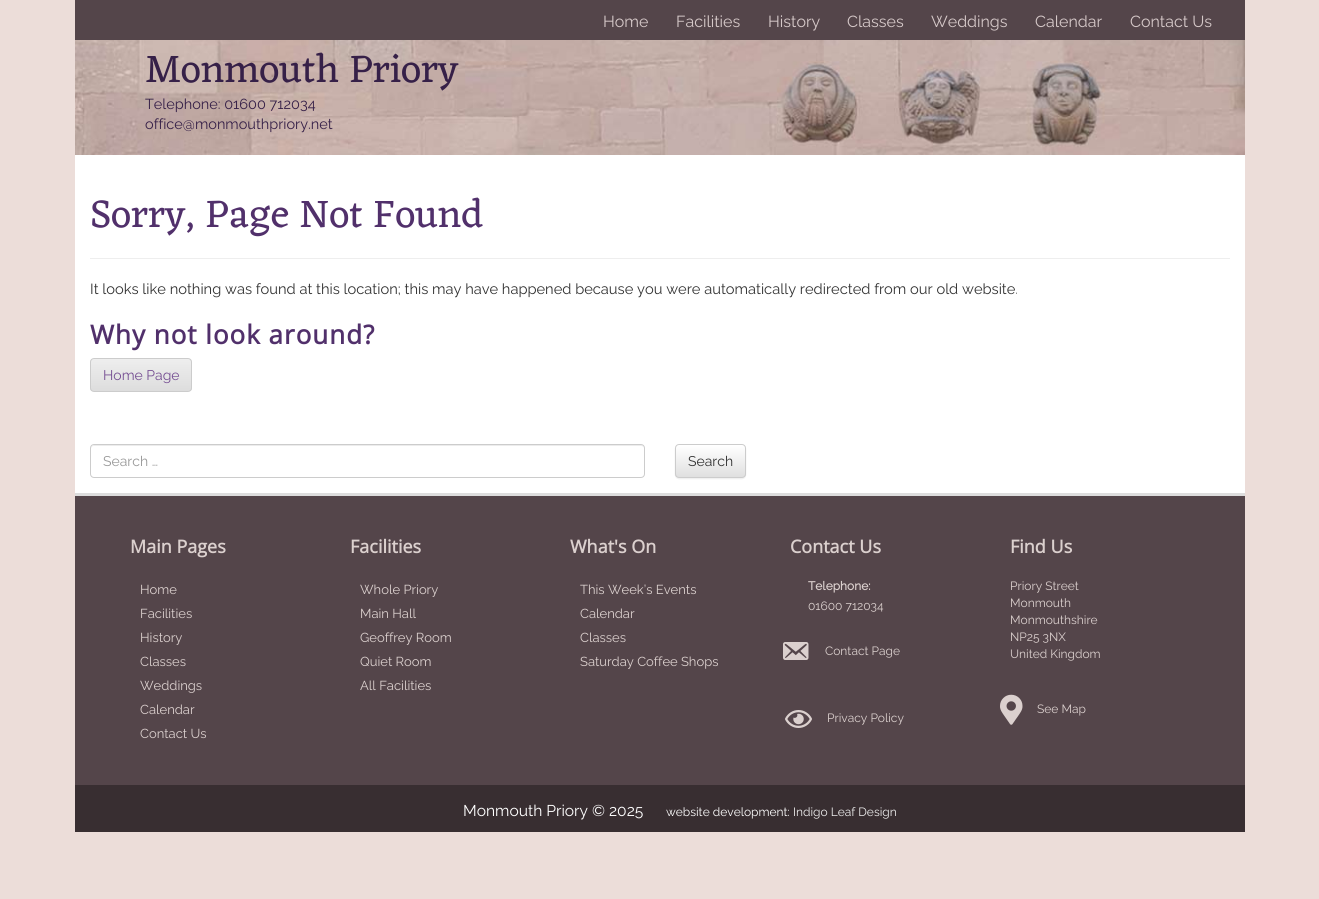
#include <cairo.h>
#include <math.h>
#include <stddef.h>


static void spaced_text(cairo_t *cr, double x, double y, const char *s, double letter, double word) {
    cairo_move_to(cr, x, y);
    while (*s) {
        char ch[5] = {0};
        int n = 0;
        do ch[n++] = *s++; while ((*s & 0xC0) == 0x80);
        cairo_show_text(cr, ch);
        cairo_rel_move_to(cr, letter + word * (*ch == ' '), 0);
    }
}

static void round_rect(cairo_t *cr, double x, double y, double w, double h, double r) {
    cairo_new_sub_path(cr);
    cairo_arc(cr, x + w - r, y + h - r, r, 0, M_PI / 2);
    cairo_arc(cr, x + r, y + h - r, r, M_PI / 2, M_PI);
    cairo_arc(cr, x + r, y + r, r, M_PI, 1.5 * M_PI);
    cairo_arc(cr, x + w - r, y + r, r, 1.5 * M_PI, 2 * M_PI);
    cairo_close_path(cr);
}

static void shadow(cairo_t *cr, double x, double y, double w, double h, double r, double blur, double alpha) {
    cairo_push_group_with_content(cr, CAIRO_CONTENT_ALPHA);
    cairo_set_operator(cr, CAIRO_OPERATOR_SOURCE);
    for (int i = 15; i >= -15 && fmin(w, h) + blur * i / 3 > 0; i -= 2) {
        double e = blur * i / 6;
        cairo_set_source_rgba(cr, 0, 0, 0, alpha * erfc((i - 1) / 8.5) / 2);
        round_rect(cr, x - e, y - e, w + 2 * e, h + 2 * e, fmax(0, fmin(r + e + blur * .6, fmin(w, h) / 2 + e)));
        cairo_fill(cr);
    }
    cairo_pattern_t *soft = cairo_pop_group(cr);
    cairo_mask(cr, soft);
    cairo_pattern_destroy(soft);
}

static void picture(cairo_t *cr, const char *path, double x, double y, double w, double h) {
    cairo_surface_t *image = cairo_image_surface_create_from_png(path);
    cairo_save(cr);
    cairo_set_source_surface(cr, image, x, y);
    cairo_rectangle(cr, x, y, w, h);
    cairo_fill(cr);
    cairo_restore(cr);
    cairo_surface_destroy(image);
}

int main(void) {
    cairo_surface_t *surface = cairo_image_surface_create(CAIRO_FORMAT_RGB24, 1319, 899);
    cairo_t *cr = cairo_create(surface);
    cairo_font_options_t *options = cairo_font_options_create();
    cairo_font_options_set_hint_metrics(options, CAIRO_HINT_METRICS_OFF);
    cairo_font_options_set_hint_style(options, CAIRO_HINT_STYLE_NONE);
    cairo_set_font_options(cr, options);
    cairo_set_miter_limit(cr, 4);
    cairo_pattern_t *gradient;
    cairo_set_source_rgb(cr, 0.922, 0.867, 0.851);
    cairo_paint(cr);
    cairo_set_source_rgb(cr, 1, 1, 1);
    cairo_rectangle(cr, 75, 155, 1170, 338);
    cairo_fill(cr);
    cairo_set_source_rgb(cr, 0.329, 0.271, 0.29);
    cairo_rectangle(cr, 75, 0, 1170, 40);
    cairo_fill(cr);
    cairo_select_font_face(cr, "Raleway Thin", CAIRO_FONT_SLANT_NORMAL, CAIRO_FONT_WEIGHT_NORMAL);
    cairo_set_font_size(cr, 16);
    cairo_set_source_rgb(cr, 0.839, 0.788, 0.788);
    cairo_move_to(cr, 603, 27);
    cairo_show_text(cr, "Home");
    cairo_move_to(cr, 676, 27);
    cairo_show_text(cr, "Facilities");
    cairo_move_to(cr, 768, 27);
    cairo_show_text(cr, "History");
    cairo_move_to(cr, 847, 27);
    cairo_show_text(cr, "Classes");
    cairo_move_to(cr, 931, 27);
    cairo_show_text(cr, "Weddings");
    cairo_move_to(cr, 1035, 27);
    cairo_show_text(cr, "Calendar");
    cairo_move_to(cr, 1130, 27);
    cairo_show_text(cr, "Contact Us");
    picture(cr, "img1.png", 75, 40, 1170, 115);
    cairo_select_font_face(cr, "Eczar", CAIRO_FONT_SLANT_NORMAL, CAIRO_FONT_WEIGHT_NORMAL);
    cairo_set_font_size(cr, 40);
    cairo_set_source_rgb(cr, 0.212, 0.125, 0.282);
    cairo_move_to(cr, 145, 82);
    cairo_show_text(cr, "Monmouth Priory");
    cairo_select_font_face(cr, "Raleway Thin", CAIRO_FONT_SLANT_NORMAL, CAIRO_FONT_WEIGHT_NORMAL);
    cairo_set_font_size(cr, 14.5);
    cairo_move_to(cr, 145, 109);
    cairo_show_text(cr, "Telephone: 01600 712034");
    cairo_move_to(cr, 145, 129);
    cairo_show_text(cr, "office@monmouthpriory.net");
    cairo_set_source_rgb(cr, 0.933, 0.933, 0.933);
    cairo_rectangle(cr, 90, 258, 1140, 1);
    cairo_fill(cr);
    cairo_select_font_face(cr, "Eczar", CAIRO_FONT_SLANT_NORMAL, CAIRO_FONT_WEIGHT_NORMAL);
    cairo_set_font_size(cr, 40);
    cairo_set_source_rgb(cr, 0.318, 0.188, 0.42);
    cairo_move_to(cr, 90, 227);
    cairo_show_text(cr, "Sorry, Page Not Found");
    cairo_select_font_face(cr, "Raleway Thin", CAIRO_FONT_SLANT_NORMAL, CAIRO_FONT_WEIGHT_NORMAL);
    cairo_set_font_size(cr, 14.67);
    cairo_set_source_rgb(cr, 0.2, 0.2, 0.2);
    cairo_move_to(cr, 90, 294);
    cairo_show_text(cr, "It looks like nothing was found at this location; this may have happened because you were automatically redirected from our old website.");
    cairo_select_font_face(cr, "Open Sans", CAIRO_FONT_SLANT_NORMAL, CAIRO_FONT_WEIGHT_BOLD);
    cairo_set_font_size(cr, 26);
    cairo_set_source_rgb(cr, 0.318, 0.188, 0.42);
    spaced_text(cr, 90, 344, "Why not look around?", 1, 0);
    cairo_save(cr);
    round_rect(cr, 90, 358, 102, 34, 4);
    cairo_clip(cr);
    gradient = cairo_pattern_create_linear(141, 359, 141, 391);
    cairo_pattern_add_color_stop_rgba(gradient, 0, 0.933, 0.933, 0.933, 1);
    cairo_pattern_add_color_stop_rgba(gradient, 1, 0.867, 0.867, 0.867, 1);
    cairo_set_source(cr, gradient);
    cairo_pattern_destroy(gradient);
    cairo_rectangle(cr, 90, 359, 102, 32);
    cairo_fill(cr);
    cairo_restore(cr);
    round_rect(cr, 90.5, 358.5, 101, 33, 3.5);
    cairo_set_source_rgb(cr, 0.8, 0.8, 0.8);
    cairo_set_line_width(cr, 1);
    cairo_stroke(cr);
    cairo_select_font_face(cr, "Raleway Thin", CAIRO_FONT_SLANT_NORMAL, CAIRO_FONT_WEIGHT_NORMAL);
    cairo_set_font_size(cr, 14);
    cairo_set_source_rgb(cr, 0.463, 0.31, 0.576);
    cairo_move_to(cr, 103, 380);
    cairo_show_text(cr, "Home Page");
    cairo_set_source_rgb(cr, 0.925, 0.925, 0.925);
    cairo_new_path(cr);
    cairo_move_to(cr, 94, 446);
    cairo_line_to(cr, 641, 446);
    cairo_curve_to(cr, 643, 446, 644, 447, 644, 449);
    cairo_curve_to(cr, 644, 447, 643, 445, 641, 445);
    cairo_line_to(cr, 94, 445);
    cairo_line_to(cr, 92, 446);
    cairo_line_to(cr, 91, 447);
    cairo_line_to(cr, 91, 449);
    cairo_curve_to(cr, 91, 447, 92, 446, 94, 446);
    cairo_close_path(cr);
    cairo_fill(cr);
    round_rect(cr, 90.5, 444.5, 554, 33, 3.5);
    cairo_set_source_rgb(cr, 0.8, 0.8, 0.8);
    cairo_stroke(cr);
    cairo_set_source_rgb(cr, 0.6, 0.6, 0.6);
    cairo_move_to(cr, 103, 466);
    cairo_show_text(cr, "Search …");
    cairo_set_source_rgb(cr, 0, 0, 0);
    shadow(cr, 675, 445, 71, 34, 4, 0.5, 0.07);
    cairo_save(cr);
    round_rect(cr, 675, 444, 71, 34, 4);
    cairo_clip(cr);
    gradient = cairo_pattern_create_linear(711, 445, 711, 477);
    cairo_pattern_add_color_stop_rgba(gradient, 0, 1, 1, 1, 1);
    cairo_pattern_add_color_stop_rgba(gradient, 1, 0.878, 0.878, 0.878, 1);
    cairo_set_source(cr, gradient);
    cairo_pattern_destroy(gradient);
    cairo_rectangle(cr, 675, 445, 71, 32);
    cairo_fill(cr);
    cairo_restore(cr);
    round_rect(cr, 675.5, 444.5, 70, 33, 3.5);
    cairo_set_source_rgb(cr, 0.8, 0.8, 0.8);
    cairo_stroke(cr);
    cairo_set_source_rgb(cr, 0.2, 0.2, 0.2);
    cairo_move_to(cr, 688, 466);
    cairo_show_text(cr, "Search");
    cairo_set_source_rgb(cr, 0.22, 0.18, 0.192);
    cairo_rectangle(cr, 75, 785, 1170, 47);
    cairo_fill(cr);
    cairo_set_source_rgb(cr, 0.867, 0.867, 0.867);
    cairo_rectangle(cr, 75, 493, 1170, 3);
    cairo_fill(cr);
    cairo_set_source_rgb(cr, 0.329, 0.271, 0.29);
    cairo_rectangle(cr, 75, 496, 1170, 289);
    cairo_fill(cr);
    cairo_select_font_face(cr, "Open Sans", CAIRO_FONT_SLANT_NORMAL, CAIRO_FONT_WEIGHT_BOLD);
    cairo_set_font_size(cr, 18);
    cairo_set_source_rgb(cr, 0.859, 0.816, 0.808);
    cairo_move_to(cr, 130, 553);
    cairo_show_text(cr, "Main Pages");
    cairo_select_font_face(cr, "Raleway Thin", CAIRO_FONT_SLANT_NORMAL, CAIRO_FONT_WEIGHT_NORMAL);
    cairo_set_font_size(cr, 13);
    cairo_move_to(cr, 140, 594);
    cairo_show_text(cr, "Home");
    cairo_move_to(cr, 140, 618);
    cairo_show_text(cr, "Facilities");
    cairo_move_to(cr, 140, 642);
    cairo_show_text(cr, "History");
    cairo_move_to(cr, 140, 666);
    cairo_show_text(cr, "Classes");
    cairo_move_to(cr, 140, 690);
    cairo_show_text(cr, "Weddings");
    cairo_move_to(cr, 140, 714);
    cairo_show_text(cr, "Calendar");
    cairo_move_to(cr, 140, 738);
    cairo_show_text(cr, "Contact Us");
    cairo_select_font_face(cr, "Open Sans", CAIRO_FONT_SLANT_NORMAL, CAIRO_FONT_WEIGHT_BOLD);
    cairo_set_font_size(cr, 18);
    cairo_move_to(cr, 350, 553);
    cairo_show_text(cr, "Facilities");
    cairo_select_font_face(cr, "Raleway Thin", CAIRO_FONT_SLANT_NORMAL, CAIRO_FONT_WEIGHT_NORMAL);
    cairo_set_font_size(cr, 13);
    cairo_move_to(cr, 360, 594);
    cairo_show_text(cr, "Whole Priory");
    cairo_move_to(cr, 360, 618);
    cairo_show_text(cr, "Main Hall");
    cairo_move_to(cr, 360, 642);
    cairo_show_text(cr, "Geoffrey Room");
    cairo_move_to(cr, 360, 666);
    cairo_show_text(cr, "Quiet Room");
    cairo_move_to(cr, 360, 690);
    cairo_show_text(cr, "All Facilities");
    cairo_select_font_face(cr, "Open Sans", CAIRO_FONT_SLANT_NORMAL, CAIRO_FONT_WEIGHT_BOLD);
    cairo_set_font_size(cr, 18);
    cairo_move_to(cr, 570, 553);
    cairo_show_text(cr, "What's On");
    cairo_select_font_face(cr, "Raleway Thin", CAIRO_FONT_SLANT_NORMAL, CAIRO_FONT_WEIGHT_NORMAL);
    cairo_set_font_size(cr, 13);
    cairo_move_to(cr, 580, 594);
    cairo_show_text(cr, "This Week’s Events");
    cairo_move_to(cr, 580, 618);
    cairo_show_text(cr, "Calendar");
    cairo_move_to(cr, 580, 642);
    cairo_show_text(cr, "Classes");
    cairo_move_to(cr, 580, 666);
    cairo_show_text(cr, "Saturday Coffee Shops");
    cairo_select_font_face(cr, "Open Sans", CAIRO_FONT_SLANT_NORMAL, CAIRO_FONT_WEIGHT_BOLD);
    cairo_set_font_size(cr, 18);
    cairo_move_to(cr, 790, 553);
    cairo_show_text(cr, "Contact Us");
    cairo_select_font_face(cr, "Raleway", CAIRO_FONT_SLANT_NORMAL, CAIRO_FONT_WEIGHT_BOLD);
    cairo_set_font_size(cr, 12);
    cairo_move_to(cr, 808, 590);
    cairo_show_text(cr, "Telephone:");
    cairo_select_font_face(cr, "Raleway Thin", CAIRO_FONT_SLANT_NORMAL, CAIRO_FONT_WEIGHT_NORMAL);
    cairo_move_to(cr, 808, 610);
    cairo_show_text(cr, "01600 712034");
    picture(cr, "img2.png", 783, 642, 26, 18);
    cairo_move_to(cr, 825, 655);
    cairo_show_text(cr, "Contact Page");
    picture(cr, "img3.png", 785, 710, 27, 18);
    cairo_move_to(cr, 827, 722);
    cairo_show_text(cr, "Privacy Policy");
    cairo_select_font_face(cr, "Open Sans", CAIRO_FONT_SLANT_NORMAL, CAIRO_FONT_WEIGHT_BOLD);
    cairo_set_font_size(cr, 18);
    cairo_move_to(cr, 1010, 553);
    cairo_show_text(cr, "Find Us");
    cairo_select_font_face(cr, "Raleway Thin", CAIRO_FONT_SLANT_NORMAL, CAIRO_FONT_WEIGHT_NORMAL);
    cairo_set_font_size(cr, 12);
    cairo_move_to(cr, 1010, 590);
    cairo_show_text(cr, "Priory Street");
    cairo_move_to(cr, 1010, 607);
    cairo_show_text(cr, "Monmouth");
    cairo_move_to(cr, 1010, 624);
    cairo_show_text(cr, "Monmouthshire");
    cairo_move_to(cr, 1010, 641);
    cairo_show_text(cr, "NP25 3NX");
    cairo_move_to(cr, 1010, 658);
    cairo_show_text(cr, "United Kingdom");
    picture(cr, "img4.png", 1000, 694, 23, 31);
    cairo_move_to(cr, 1037, 713);
    cairo_show_text(cr, "See Map");
    cairo_set_font_size(cr, 15.6);
    cairo_set_source_rgb(cr, 1, 1, 1);
    cairo_move_to(cr, 463, 816);
    cairo_show_text(cr, "Monmouth Priory © 2025");
    cairo_set_font_size(cr, 12);
    cairo_move_to(cr, 666, 816);
    cairo_show_text(cr, "website development:");
    cairo_set_source_rgb(cr, 0.933, 0.933, 0.933);
    cairo_move_to(cr, 793, 816);
    cairo_show_text(cr, "Indigo Leaf Design");
    cairo_surface_write_to_png(surface, "page.png");
    cairo_font_options_destroy(options);
    cairo_destroy(cr);
    cairo_surface_destroy(surface);
    return 0;
}
